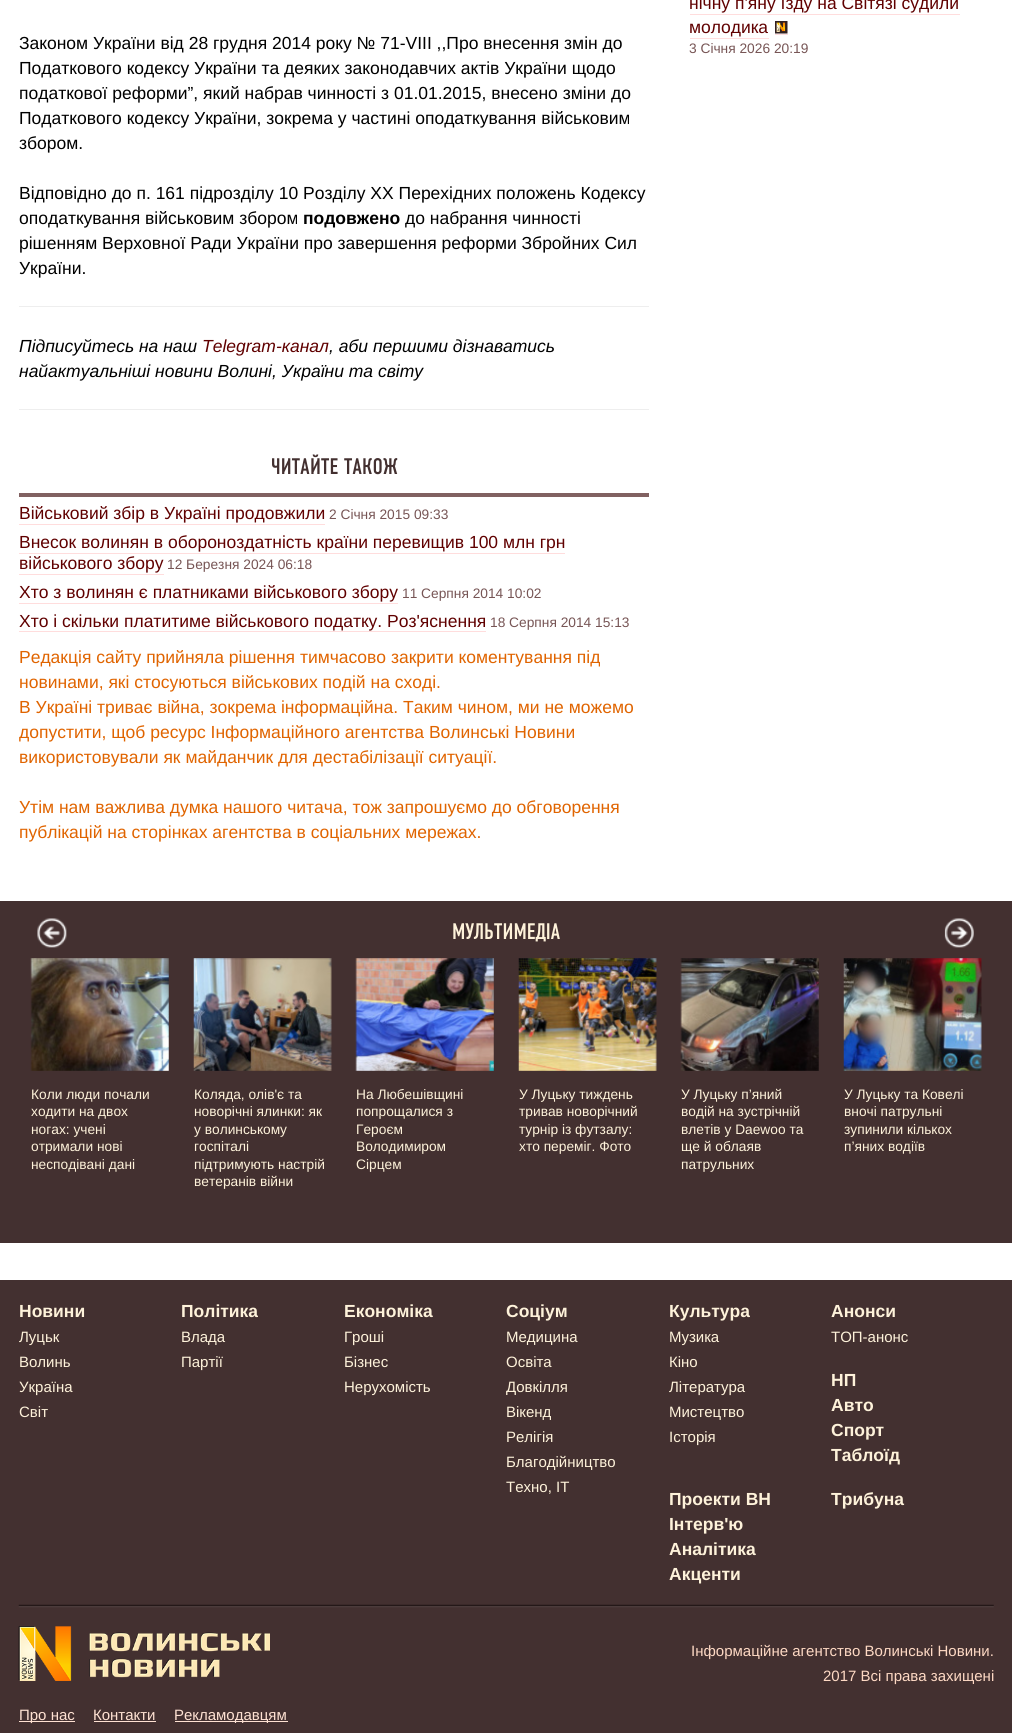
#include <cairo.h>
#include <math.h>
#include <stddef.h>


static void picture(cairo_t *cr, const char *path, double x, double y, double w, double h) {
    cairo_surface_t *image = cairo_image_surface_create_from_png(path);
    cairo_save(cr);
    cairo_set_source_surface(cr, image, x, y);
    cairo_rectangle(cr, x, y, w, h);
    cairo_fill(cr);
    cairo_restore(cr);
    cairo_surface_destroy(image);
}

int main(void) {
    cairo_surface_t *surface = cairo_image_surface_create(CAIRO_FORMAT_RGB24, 1012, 1733);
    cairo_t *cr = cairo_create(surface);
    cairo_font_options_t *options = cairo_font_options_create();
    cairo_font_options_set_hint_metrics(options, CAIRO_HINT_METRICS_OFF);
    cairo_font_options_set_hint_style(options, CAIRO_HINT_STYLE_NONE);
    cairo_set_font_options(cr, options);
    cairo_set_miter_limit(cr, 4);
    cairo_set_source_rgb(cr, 1, 1, 1);
    cairo_paint(cr);
    cairo_select_font_face(cr, "Liberation Sans", CAIRO_FONT_SLANT_NORMAL, CAIRO_FONT_WEIGHT_NORMAL);
    cairo_set_font_size(cr, 17.5);
    cairo_set_source_rgb(cr, 0.376, 0, 0);
    cairo_move_to(cr, 689, 9);
    cairo_show_text(cr, "нічну п'яну їзду на Світязі судили");
    cairo_set_source_rgb(cr, 1, 0.867, 0.867);
    cairo_rectangle(cr, 690, 14, 270, 1);
    cairo_fill(cr);
    cairo_set_source_rgb(cr, 0.376, 0, 0);
    cairo_move_to(cr, 689, 33);
    cairo_show_text(cr, "молодика");
    cairo_set_source_rgb(cr, 1, 0.867, 0.867);
    cairo_rectangle(cr, 690, 38, 79, 1);
    cairo_fill(cr);
    cairo_rectangle(cr, 775, 34, 13, 1);
    cairo_fill(cr);
    picture(cr, "img1.png", 775, 21, 13, 13);
    cairo_set_font_size(cr, 13.75);
    cairo_set_source_rgb(cr, 0.467, 0.333, 0.333);
    cairo_move_to(cr, 689, 53);
    cairo_show_text(cr, "3 Січня 2026 20:19");
    cairo_set_font_size(cr, 17.5);
    cairo_set_source_rgb(cr, 0, 0, 0);
    cairo_move_to(cr, 19, 49);
    cairo_show_text(cr, "Законом України від 28 грудня 2014 року № 71-VIII ,,Про внесення змін до");
    cairo_move_to(cr, 19, 74);
    cairo_show_text(cr, "Податкового кодексу України та деяких законодавчих актів України щодо");
    cairo_move_to(cr, 19, 99);
    cairo_show_text(cr, "податкової реформи”, який набрав чинності з 01.01.2015, внесено зміни до");
    cairo_move_to(cr, 19, 124);
    cairo_show_text(cr, "Податкового кодексу України, зокрема у частині оподаткування військовим");
    cairo_move_to(cr, 19, 149);
    cairo_show_text(cr, "збором.");
    cairo_move_to(cr, 19, 199);
    cairo_show_text(cr, "Відповідно до п. 161 підрозділу 10 Розділу ХХ Перехідних положень Кодексу");
    cairo_move_to(cr, 19, 224);
    cairo_show_text(cr, "оподаткування військовим збором");
    cairo_select_font_face(cr, "Liberation Sans", CAIRO_FONT_SLANT_NORMAL, CAIRO_FONT_WEIGHT_BOLD);
    cairo_move_to(cr, 303, 224);
    cairo_show_text(cr, "подовжено");
    cairo_select_font_face(cr, "Liberation Sans", CAIRO_FONT_SLANT_NORMAL, CAIRO_FONT_WEIGHT_NORMAL);
    cairo_move_to(cr, 405, 224);
    cairo_show_text(cr, "до набрання чинності");
    cairo_move_to(cr, 19, 249);
    cairo_show_text(cr, "рішенням Верховної Ради України про завершення реформи Збройних Сил");
    cairo_move_to(cr, 19, 274);
    cairo_show_text(cr, "України.");
    cairo_set_source_rgb(cr, 0.933, 0.933, 0.933);
    cairo_rectangle(cr, 19, 306, 630, 1);
    cairo_fill(cr);
    cairo_select_font_face(cr, "Liberation Sans", CAIRO_FONT_SLANT_ITALIC, CAIRO_FONT_WEIGHT_NORMAL);
    cairo_set_source_rgb(cr, 0, 0, 0);
    cairo_move_to(cr, 19, 352);
    cairo_show_text(cr, "Підписуйтесь на наш");
    cairo_set_source_rgb(cr, 0.376, 0, 0);
    cairo_move_to(cr, 202, 352);
    cairo_show_text(cr, "Telegram-канал");
    cairo_set_source_rgb(cr, 0, 0, 0);
    cairo_move_to(cr, 329, 352);
    cairo_show_text(cr, ", аби першими дізнаватись");
    cairo_move_to(cr, 19, 377);
    cairo_show_text(cr, "найактуальніші новини Волині, України та світу");
    cairo_set_source_rgb(cr, 0.933, 0.933, 0.933);
    cairo_rectangle(cr, 19, 409, 630, 1);
    cairo_fill(cr);
    cairo_set_source_rgb(cr, 0.506, 0.38, 0.38);
    cairo_rectangle(cr, 19, 493, 630, 4);
    cairo_fill(cr);
    cairo_select_font_face(cr, "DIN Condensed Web", CAIRO_FONT_SLANT_NORMAL, CAIRO_FONT_WEIGHT_NORMAL);
    cairo_set_font_size(cr, 22.5);
    cairo_set_source_rgb(cr, 0.263, 0.188, 0.188);
    cairo_move_to(cr, 271, 474);
    cairo_show_text(cr, "ЧИТАЙТЕ ТАКОЖ");
    cairo_select_font_face(cr, "Liberation Sans", CAIRO_FONT_SLANT_NORMAL, CAIRO_FONT_WEIGHT_NORMAL);
    cairo_set_font_size(cr, 17.5);
    cairo_set_source_rgb(cr, 0.376, 0, 0);
    cairo_move_to(cr, 19, 519);
    cairo_show_text(cr, "Військовий збір в Україні продовжили");
    cairo_set_source_rgb(cr, 1, 0.867, 0.867);
    cairo_rectangle(cr, 19, 524, 306, 1);
    cairo_fill(cr);
    cairo_set_font_size(cr, 13.75);
    cairo_set_source_rgb(cr, 0.467, 0.333, 0.333);
    cairo_move_to(cr, 329, 519);
    cairo_show_text(cr, "2 Січня 2015 09:33");
    cairo_set_font_size(cr, 17.5);
    cairo_set_source_rgb(cr, 0.376, 0, 0);
    cairo_move_to(cr, 19, 548);
    cairo_show_text(cr, "Внесок волинян в обороноздатність країни перевищив 100 млн грн");
    cairo_set_source_rgb(cr, 1, 0.867, 0.867);
    cairo_rectangle(cr, 19, 553, 546, 1);
    cairo_fill(cr);
    cairo_set_source_rgb(cr, 0.376, 0, 0);
    cairo_move_to(cr, 19, 569);
    cairo_show_text(cr, "військового збору");
    cairo_set_source_rgb(cr, 1, 0.867, 0.867);
    cairo_rectangle(cr, 19, 574, 145, 1);
    cairo_fill(cr);
    cairo_set_font_size(cr, 13.75);
    cairo_set_source_rgb(cr, 0.467, 0.333, 0.333);
    cairo_move_to(cr, 167, 569);
    cairo_show_text(cr, "12 Березня 2024 06:18");
    cairo_set_font_size(cr, 17.5);
    cairo_set_source_rgb(cr, 0.376, 0, 0);
    cairo_move_to(cr, 19, 598);
    cairo_show_text(cr, "Хто з волинян є платниками військового збору");
    cairo_set_source_rgb(cr, 1, 0.867, 0.867);
    cairo_rectangle(cr, 19, 603, 379, 1);
    cairo_fill(cr);
    cairo_set_font_size(cr, 13.75);
    cairo_set_source_rgb(cr, 0.467, 0.333, 0.333);
    cairo_move_to(cr, 402, 598);
    cairo_show_text(cr, "11 Серпня 2014 10:02");
    cairo_set_font_size(cr, 17.5);
    cairo_set_source_rgb(cr, 0.376, 0, 0);
    cairo_move_to(cr, 19, 627);
    cairo_show_text(cr, "Хто і скільки платитиме військового податку. Роз'яснення");
    cairo_set_source_rgb(cr, 1, 0.867, 0.867);
    cairo_rectangle(cr, 19, 631, 467, 1);
    cairo_fill(cr);
    cairo_set_font_size(cr, 13.75);
    cairo_set_source_rgb(cr, 0.467, 0.333, 0.333);
    cairo_move_to(cr, 490, 627);
    cairo_show_text(cr, "18 Серпня 2014 15:13");
    cairo_set_font_size(cr, 17.5);
    cairo_set_source_rgb(cr, 0.878, 0.392, 0);
    cairo_move_to(cr, 19, 663);
    cairo_show_text(cr, "Редакція сайту прийняла рішення тимчасово закрити коментування під");
    cairo_move_to(cr, 19, 688);
    cairo_show_text(cr, "новинами, які стосуються військових подій на сході.");
    cairo_move_to(cr, 19, 713);
    cairo_show_text(cr, "В Україні триває війна, зокрема інформаційна. Таким чином, ми не можемо");
    cairo_save(cr);
    cairo_rectangle(cr, 19, 639, 630, 212);
    cairo_clip(cr);
    cairo_move_to(cr, 19, 738);
    cairo_show_text(cr, "допустити, щоб ресурс Інформаційного агентства Волинські Новини");
    cairo_restore(cr);
    cairo_move_to(cr, 19, 763);
    cairo_show_text(cr, "використовували як майданчик для дестабілізації ситуації.");
    cairo_move_to(cr, 19, 813);
    cairo_show_text(cr, "Утім нам важлива думка нашого читача, тож запрошуємо до обговорення");
    cairo_move_to(cr, 19, 838);
    cairo_show_text(cr, "публікацій на сторінках агентства в соціальних мережах.");
    cairo_set_source_rgb(cr, 0.263, 0.188, 0.188);
    cairo_rectangle(cr, 0, 901, 1012, 342);
    cairo_fill(cr);
    cairo_select_font_face(cr, "DIN Condensed Web", CAIRO_FONT_SLANT_NORMAL, CAIRO_FONT_WEIGHT_NORMAL);
    cairo_set_font_size(cr, 22.5);
    cairo_set_source_rgb(cr, 0.996, 0.949, 0.855);
    cairo_move_to(cr, 452, 939);
    cairo_show_text(cr, "МУЛЬТИМЕДІА");
    picture(cr, "img2.png", 37, 918, 30, 30);
    picture(cr, "img3.png", 944, 918, 30, 30);
    picture(cr, "img4.png", 30, 958, 139, 113);
    cairo_select_font_face(cr, "Liberation Sans", CAIRO_FONT_SLANT_NORMAL, CAIRO_FONT_WEIGHT_NORMAL);
    cairo_set_font_size(cr, 13.75);
    cairo_move_to(cr, 31, 1099);
    cairo_show_text(cr, "Коли люди почали");
    cairo_move_to(cr, 31, 1116);
    cairo_show_text(cr, "ходити на двох");
    cairo_move_to(cr, 31, 1134);
    cairo_show_text(cr, "ногах: учені");
    cairo_move_to(cr, 31, 1151);
    cairo_show_text(cr, "отримали нові");
    cairo_move_to(cr, 31, 1169);
    cairo_show_text(cr, "несподівані дані");
    picture(cr, "img5.png", 193, 958, 139, 113);
    cairo_move_to(cr, 194, 1099);
    cairo_show_text(cr, "Коляда, олів'є та");
    cairo_move_to(cr, 194, 1116);
    cairo_show_text(cr, "новорічні ялинки: як");
    cairo_move_to(cr, 194, 1134);
    cairo_show_text(cr, "у волинському");
    cairo_move_to(cr, 194, 1151);
    cairo_show_text(cr, "госпіталі");
    cairo_move_to(cr, 194, 1169);
    cairo_show_text(cr, "підтримують настрій");
    cairo_move_to(cr, 194, 1186);
    cairo_show_text(cr, "ветеранів війни");
    picture(cr, "img6.png", 355, 958, 139, 113);
    cairo_move_to(cr, 356, 1099);
    cairo_show_text(cr, "На Любешівщині");
    cairo_move_to(cr, 356, 1116);
    cairo_show_text(cr, "попрощалися з");
    cairo_move_to(cr, 356, 1134);
    cairo_show_text(cr, "Героєм");
    cairo_move_to(cr, 356, 1151);
    cairo_show_text(cr, "Володимиром");
    cairo_move_to(cr, 356, 1169);
    cairo_show_text(cr, "Сірцем");
    picture(cr, "img7.png", 518, 958, 139, 113);
    cairo_move_to(cr, 519, 1099);
    cairo_show_text(cr, "У Луцьку тиждень");
    cairo_move_to(cr, 519, 1116);
    cairo_show_text(cr, "тривав новорічний");
    cairo_move_to(cr, 519, 1134);
    cairo_show_text(cr, "турнір із футзалу:");
    cairo_move_to(cr, 519, 1151);
    cairo_show_text(cr, "хто переміг. Фото");
    picture(cr, "img8.png", 680, 958, 139, 113);
    cairo_move_to(cr, 681, 1099);
    cairo_show_text(cr, "У Луцьку п’яний");
    cairo_move_to(cr, 681, 1116);
    cairo_show_text(cr, "водій на зустрічній");
    cairo_move_to(cr, 681, 1134);
    cairo_show_text(cr, "влетів у Daewoo та");
    cairo_move_to(cr, 681, 1151);
    cairo_show_text(cr, "ще й облаяв");
    cairo_move_to(cr, 681, 1169);
    cairo_show_text(cr, "патрульних");
    picture(cr, "img9.png", 843, 958, 139, 113);
    cairo_move_to(cr, 844, 1099);
    cairo_show_text(cr, "У Луцьку та Ковелі");
    cairo_move_to(cr, 844, 1116);
    cairo_show_text(cr, "вночі патрульні");
    cairo_move_to(cr, 844, 1134);
    cairo_show_text(cr, "зупинили кількох");
    cairo_move_to(cr, 844, 1151);
    cairo_show_text(cr, "п’яних водіїв");
    cairo_set_source_rgb(cr, 0.263, 0.188, 0.188);
    cairo_rectangle(cr, 0, 1280, 1012, 453);
    cairo_fill(cr);
    cairo_select_font_face(cr, "Liberation Sans", CAIRO_FONT_SLANT_NORMAL, CAIRO_FONT_WEIGHT_BOLD);
    cairo_set_font_size(cr, 17.5);
    cairo_set_source_rgb(cr, 0.996, 0.949, 0.855);
    cairo_move_to(cr, 19, 1317);
    cairo_show_text(cr, "Новини");
    cairo_select_font_face(cr, "Liberation Sans", CAIRO_FONT_SLANT_NORMAL, CAIRO_FONT_WEIGHT_NORMAL);
    cairo_set_font_size(cr, 15);
    cairo_move_to(cr, 19, 1342);
    cairo_show_text(cr, "Луцьк");
    cairo_move_to(cr, 19, 1367);
    cairo_show_text(cr, "Волинь");
    cairo_move_to(cr, 19, 1392);
    cairo_show_text(cr, "Україна");
    cairo_move_to(cr, 19, 1417);
    cairo_show_text(cr, "Світ");
    cairo_select_font_face(cr, "Liberation Sans", CAIRO_FONT_SLANT_NORMAL, CAIRO_FONT_WEIGHT_BOLD);
    cairo_set_font_size(cr, 17.5);
    cairo_move_to(cr, 181, 1317);
    cairo_show_text(cr, "Політика");
    cairo_select_font_face(cr, "Liberation Sans", CAIRO_FONT_SLANT_NORMAL, CAIRO_FONT_WEIGHT_NORMAL);
    cairo_set_font_size(cr, 15);
    cairo_move_to(cr, 181, 1342);
    cairo_show_text(cr, "Влада");
    cairo_move_to(cr, 181, 1367);
    cairo_show_text(cr, "Партії");
    cairo_select_font_face(cr, "Liberation Sans", CAIRO_FONT_SLANT_NORMAL, CAIRO_FONT_WEIGHT_BOLD);
    cairo_set_font_size(cr, 17.5);
    cairo_move_to(cr, 344, 1317);
    cairo_show_text(cr, "Економіка");
    cairo_select_font_face(cr, "Liberation Sans", CAIRO_FONT_SLANT_NORMAL, CAIRO_FONT_WEIGHT_NORMAL);
    cairo_set_font_size(cr, 15);
    cairo_move_to(cr, 344, 1342);
    cairo_show_text(cr, "Гроші");
    cairo_move_to(cr, 344, 1367);
    cairo_show_text(cr, "Бізнес");
    cairo_move_to(cr, 344, 1392);
    cairo_show_text(cr, "Нерухомість");
    cairo_select_font_face(cr, "Liberation Sans", CAIRO_FONT_SLANT_NORMAL, CAIRO_FONT_WEIGHT_BOLD);
    cairo_set_font_size(cr, 17.5);
    cairo_move_to(cr, 506, 1317);
    cairo_show_text(cr, "Соціум");
    cairo_select_font_face(cr, "Liberation Sans", CAIRO_FONT_SLANT_NORMAL, CAIRO_FONT_WEIGHT_NORMAL);
    cairo_set_font_size(cr, 15);
    cairo_move_to(cr, 506, 1342);
    cairo_show_text(cr, "Медицина");
    cairo_move_to(cr, 506, 1367);
    cairo_show_text(cr, "Освіта");
    cairo_move_to(cr, 506, 1392);
    cairo_show_text(cr, "Довкілля");
    cairo_move_to(cr, 506, 1417);
    cairo_show_text(cr, "Вікенд");
    cairo_move_to(cr, 506, 1442);
    cairo_show_text(cr, "Релігія");
    cairo_move_to(cr, 506, 1467);
    cairo_show_text(cr, "Благодійництво");
    cairo_move_to(cr, 506, 1492);
    cairo_show_text(cr, "Техно, IT");
    cairo_select_font_face(cr, "Liberation Sans", CAIRO_FONT_SLANT_NORMAL, CAIRO_FONT_WEIGHT_BOLD);
    cairo_set_font_size(cr, 17.5);
    cairo_move_to(cr, 669, 1317);
    cairo_show_text(cr, "Культура");
    cairo_select_font_face(cr, "Liberation Sans", CAIRO_FONT_SLANT_NORMAL, CAIRO_FONT_WEIGHT_NORMAL);
    cairo_set_font_size(cr, 15);
    cairo_move_to(cr, 669, 1342);
    cairo_show_text(cr, "Музика");
    cairo_move_to(cr, 669, 1367);
    cairo_show_text(cr, "Кіно");
    cairo_move_to(cr, 669, 1392);
    cairo_show_text(cr, "Література");
    cairo_move_to(cr, 669, 1417);
    cairo_show_text(cr, "Мистецтво");
    cairo_move_to(cr, 669, 1442);
    cairo_show_text(cr, "Історія");
    cairo_select_font_face(cr, "Liberation Sans", CAIRO_FONT_SLANT_NORMAL, CAIRO_FONT_WEIGHT_BOLD);
    cairo_set_font_size(cr, 17.5);
    cairo_move_to(cr, 831, 1317);
    cairo_show_text(cr, "Анонси");
    cairo_select_font_face(cr, "Liberation Sans", CAIRO_FONT_SLANT_NORMAL, CAIRO_FONT_WEIGHT_NORMAL);
    cairo_set_font_size(cr, 15);
    cairo_move_to(cr, 831, 1342);
    cairo_show_text(cr, "ТОП-анонс");
    cairo_select_font_face(cr, "Liberation Sans", CAIRO_FONT_SLANT_NORMAL, CAIRO_FONT_WEIGHT_BOLD);
    cairo_set_font_size(cr, 17.5);
    cairo_move_to(cr, 831, 1386);
    cairo_show_text(cr, "НП");
    cairo_move_to(cr, 831, 1411);
    cairo_show_text(cr, "Авто");
    cairo_move_to(cr, 831, 1436);
    cairo_show_text(cr, "Спорт");
    cairo_move_to(cr, 831, 1461);
    cairo_show_text(cr, "Таблоїд");
    cairo_move_to(cr, 669, 1505);
    cairo_show_text(cr, "Проекти ВН");
    cairo_move_to(cr, 669, 1530);
    cairo_show_text(cr, "Інтерв'ю");
    cairo_move_to(cr, 669, 1555);
    cairo_show_text(cr, "Аналітика");
    cairo_move_to(cr, 669, 1580);
    cairo_show_text(cr, "Акценти");
    cairo_move_to(cr, 831, 1505);
    cairo_show_text(cr, "Трибуна");
    picture(cr, "img10.png", 18, 1604, 976, 4);
    picture(cr, "img11.png", 18, 1626, 252, 55);
    cairo_select_font_face(cr, "Liberation Sans", CAIRO_FONT_SLANT_NORMAL, CAIRO_FONT_WEIGHT_NORMAL);
    cairo_set_font_size(cr, 15);
    cairo_set_source_rgb(cr, 0.996, 0.851, 0.769);
    cairo_move_to(cr, 691, 1656);
    cairo_show_text(cr, "Інформаційне агентство Волинські Новини.");
    cairo_move_to(cr, 823, 1681);
    cairo_show_text(cr, "2017 Всі права захищені");
    cairo_set_source_rgb(cr, 1, 0.886, 0.827);
    cairo_rectangle(cr, 19, 1721, 56, 1);
    cairo_fill(cr);
    cairo_move_to(cr, 19, 1720);
    cairo_show_text(cr, "Про нас");
    cairo_move_to(cr, 93, 1720);
    cairo_show_text(cr, "Контакти");
    cairo_rectangle(cr, 94, 1721, 62, 1);
    cairo_fill(cr);
    cairo_rectangle(cr, 175, 1721, 113, 1);
    cairo_fill(cr);
    cairo_move_to(cr, 174, 1720);
    cairo_show_text(cr, "Рекламодавцям");
    cairo_surface_write_to_png(surface, "page.png");
    cairo_font_options_destroy(options);
    cairo_destroy(cr);
    cairo_surface_destroy(surface);
    return 0;
}
